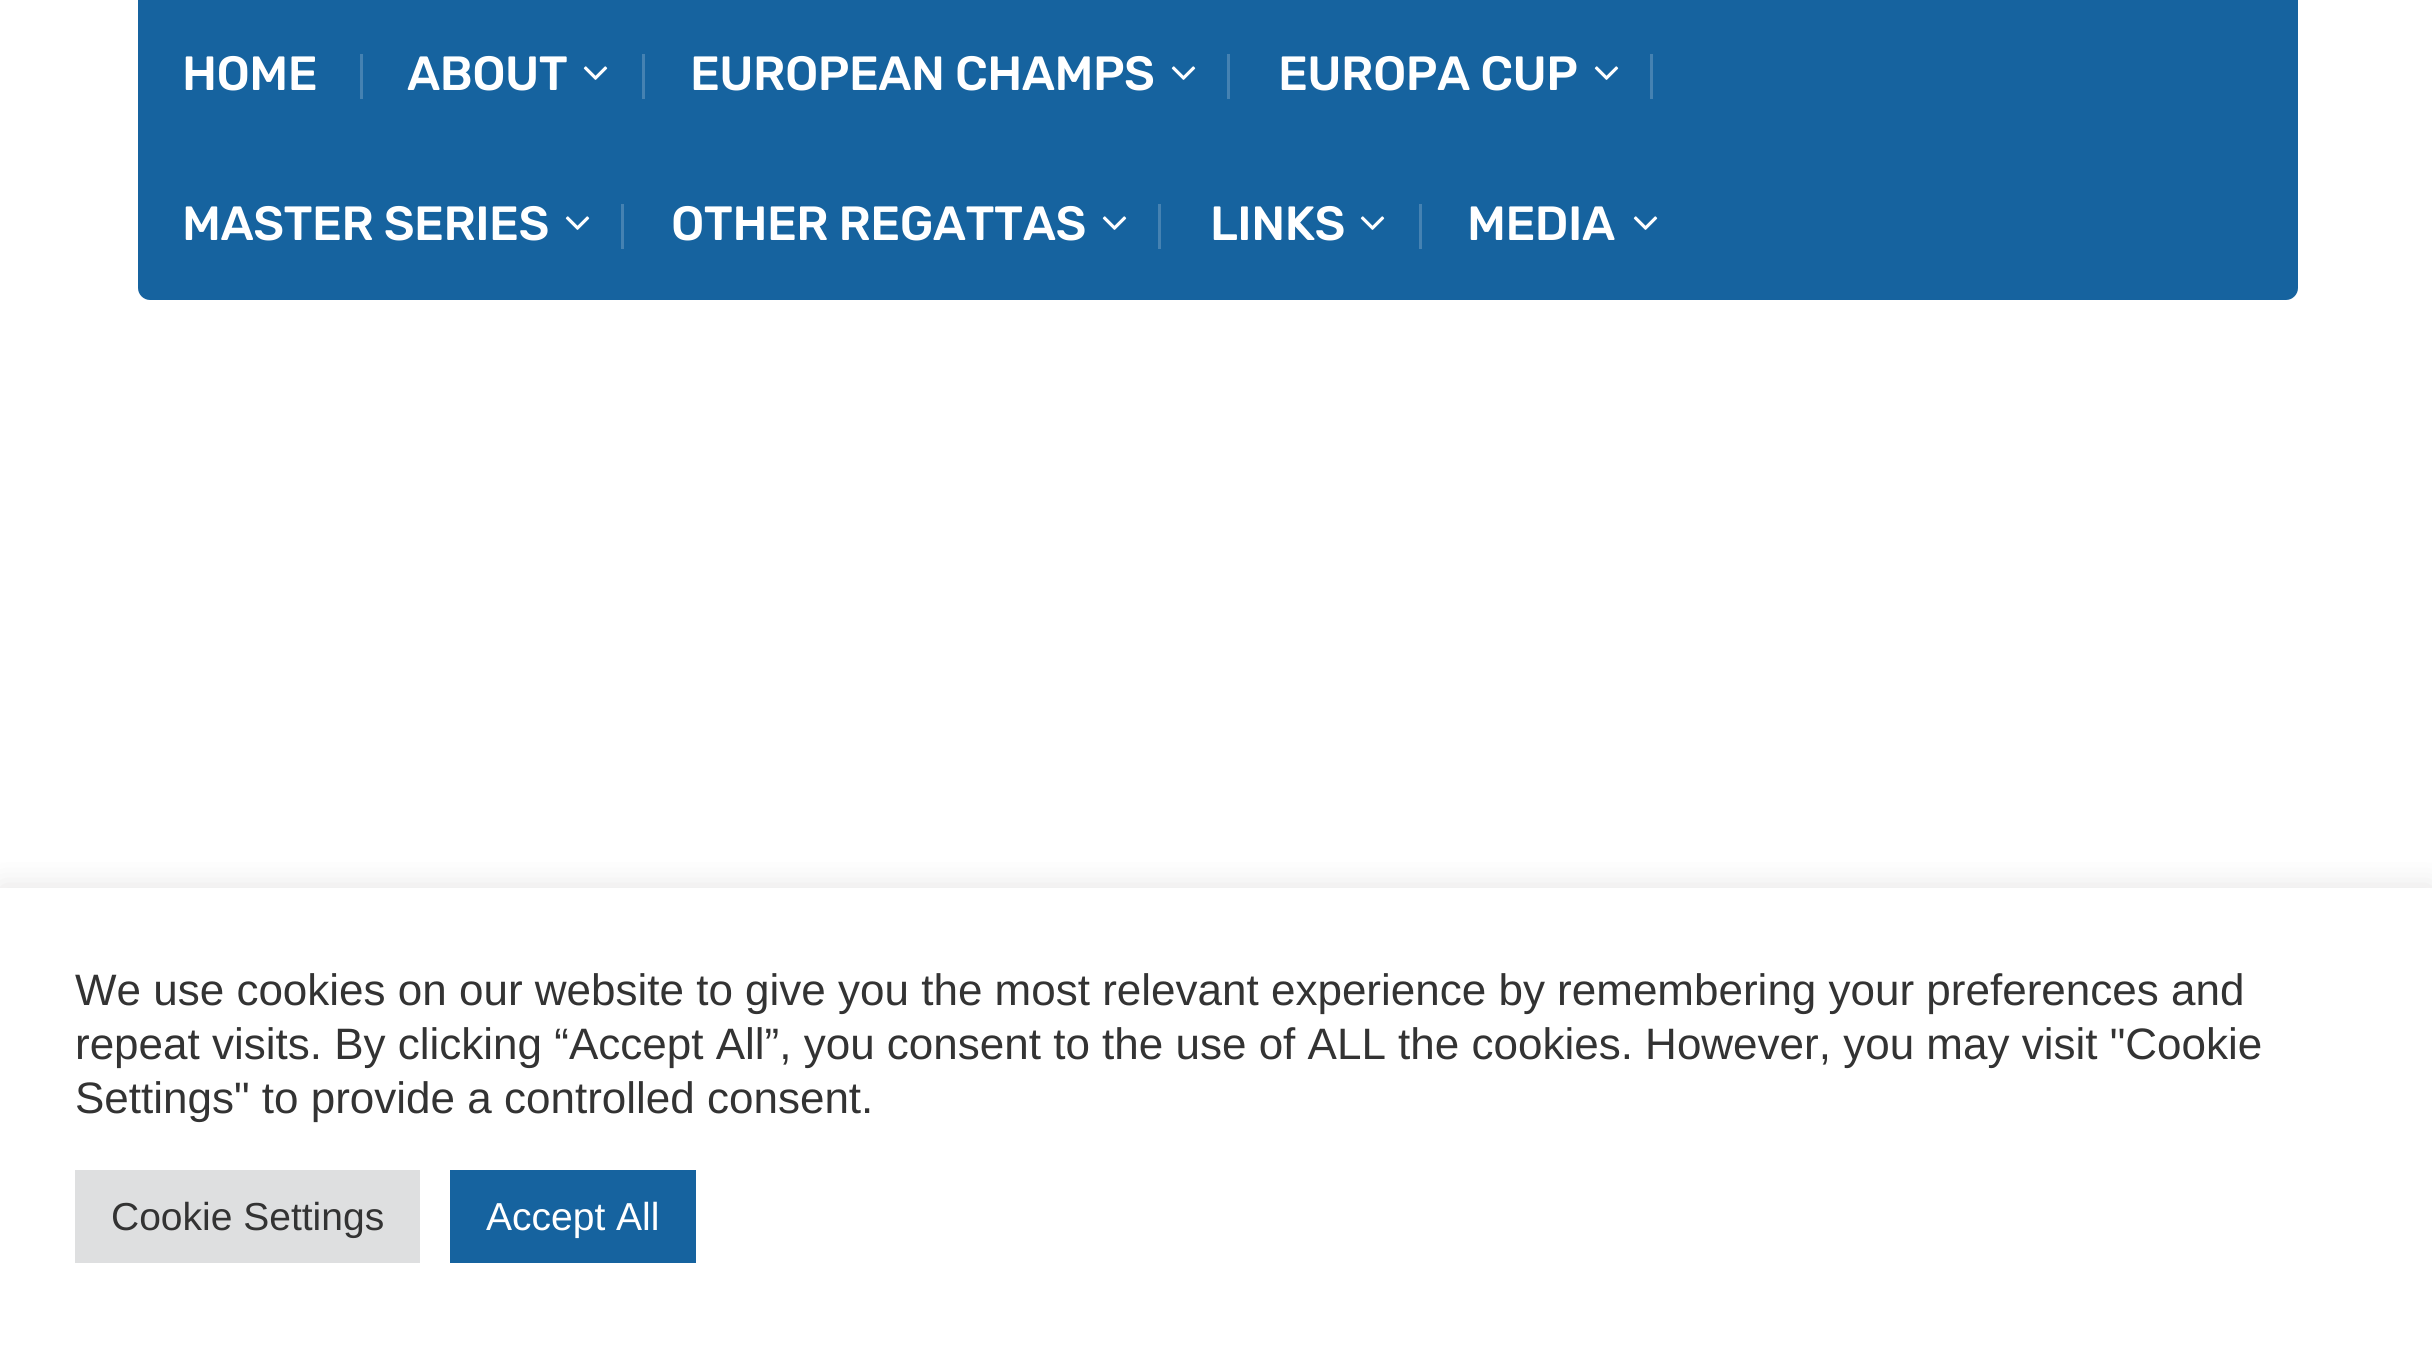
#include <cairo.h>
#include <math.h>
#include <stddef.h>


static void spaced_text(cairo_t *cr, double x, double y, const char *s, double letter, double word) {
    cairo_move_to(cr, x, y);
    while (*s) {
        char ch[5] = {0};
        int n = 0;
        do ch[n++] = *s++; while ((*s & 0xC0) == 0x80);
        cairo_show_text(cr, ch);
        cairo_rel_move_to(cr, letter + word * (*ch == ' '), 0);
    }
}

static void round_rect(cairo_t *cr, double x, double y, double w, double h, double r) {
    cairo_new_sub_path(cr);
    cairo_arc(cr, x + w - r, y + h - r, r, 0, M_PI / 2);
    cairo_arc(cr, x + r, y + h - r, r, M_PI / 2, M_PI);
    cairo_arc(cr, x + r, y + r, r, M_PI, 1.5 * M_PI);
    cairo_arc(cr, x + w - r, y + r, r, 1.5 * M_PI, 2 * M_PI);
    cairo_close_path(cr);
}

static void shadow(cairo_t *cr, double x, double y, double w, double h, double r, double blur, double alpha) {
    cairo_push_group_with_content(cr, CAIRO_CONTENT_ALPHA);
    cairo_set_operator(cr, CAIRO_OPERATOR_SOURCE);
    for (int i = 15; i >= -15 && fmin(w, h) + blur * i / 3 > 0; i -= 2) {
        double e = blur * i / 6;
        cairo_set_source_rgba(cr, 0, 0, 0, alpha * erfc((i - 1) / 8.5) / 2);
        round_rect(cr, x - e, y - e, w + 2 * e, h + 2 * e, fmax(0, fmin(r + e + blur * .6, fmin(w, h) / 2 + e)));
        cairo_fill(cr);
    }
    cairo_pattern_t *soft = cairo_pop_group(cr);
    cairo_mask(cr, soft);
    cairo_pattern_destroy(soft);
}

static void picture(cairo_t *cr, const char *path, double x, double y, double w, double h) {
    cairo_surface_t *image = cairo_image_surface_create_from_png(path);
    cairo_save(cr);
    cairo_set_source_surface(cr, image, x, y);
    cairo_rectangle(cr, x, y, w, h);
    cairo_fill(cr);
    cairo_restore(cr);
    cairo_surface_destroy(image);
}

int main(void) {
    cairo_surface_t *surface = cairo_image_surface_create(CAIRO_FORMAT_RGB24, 2432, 1352);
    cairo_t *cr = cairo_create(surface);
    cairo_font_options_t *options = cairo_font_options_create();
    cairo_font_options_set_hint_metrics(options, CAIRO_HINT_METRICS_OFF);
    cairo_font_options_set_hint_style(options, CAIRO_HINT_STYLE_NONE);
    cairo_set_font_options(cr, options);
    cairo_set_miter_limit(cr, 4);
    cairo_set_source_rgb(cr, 1, 1, 1);
    cairo_paint(cr);
    cairo_set_source_rgb(cr, 0.086, 0.388, 0.624);
    cairo_new_path(cr);
    cairo_move_to(cr, 138, 0);
    cairo_line_to(cr, 2298, 0);
    cairo_line_to(cr, 2298, 288);
    cairo_curve_to(cr, 2298, 294.5, 2292.5, 300, 2286, 300);
    cairo_line_to(cr, 150, 300);
    cairo_curve_to(cr, 143.5, 300, 138, 294.5, 138, 288);
    cairo_close_path(cr);
    cairo_fill(cr);
    cairo_select_font_face(cr, "Rubik Medium", CAIRO_FONT_SLANT_NORMAL, CAIRO_FONT_WEIGHT_NORMAL);
    cairo_set_font_size(cr, 48);
    cairo_set_source_rgb(cr, 1, 1, 1);
    spaced_text(cr, 182, 90, "HOME", -0.5, 0);
    cairo_set_source_rgb(cr, 0.271, 0.51, 0.698);
    cairo_rectangle(cr, 360, 54, 3, 45);
    cairo_fill(cr);
    cairo_set_source_rgb(cr, 1, 1, 1);
    spaced_text(cr, 407, 90, "ABOUT", -0.5, 0);
    picture(cr, "img1.png", 583, 66, 25, 14);
    cairo_set_source_rgb(cr, 0.271, 0.51, 0.698);
    cairo_rectangle(cr, 642, 54, 3, 45);
    cairo_fill(cr);
    cairo_set_source_rgb(cr, 1, 1, 1);
    spaced_text(cr, 690, 90, "EUROPEAN CHAMPS", -0.5, 0);
    picture(cr, "img1.png", 1171, 66, 25, 14);
    cairo_set_source_rgb(cr, 0.271, 0.51, 0.698);
    cairo_rectangle(cr, 1227, 54, 3, 45);
    cairo_fill(cr);
    cairo_set_source_rgb(cr, 1, 1, 1);
    spaced_text(cr, 1278, 90, "EUROPA CUP", -0.5, 0);
    picture(cr, "img1.png", 1594, 66, 25, 14);
    cairo_set_source_rgb(cr, 0.271, 0.51, 0.698);
    cairo_rectangle(cr, 1650, 54, 3, 45);
    cairo_fill(cr);
    cairo_set_source_rgb(cr, 1, 1, 1);
    spaced_text(cr, 182, 240, "MASTER SERIES", -0.5, 0);
    picture(cr, "img1.png", 565, 216, 25, 14);
    cairo_set_source_rgb(cr, 0.271, 0.51, 0.698);
    cairo_rectangle(cr, 621, 204, 3, 45);
    cairo_fill(cr);
    cairo_set_source_rgb(cr, 1, 1, 1);
    spaced_text(cr, 671, 240, "OTHER REGATTAS", -0.5, 0);
    picture(cr, "img1.png", 1102, 216, 25, 14);
    cairo_set_source_rgb(cr, 0.271, 0.51, 0.698);
    cairo_rectangle(cr, 1158, 204, 3, 45);
    cairo_fill(cr);
    cairo_set_source_rgb(cr, 1, 1, 1);
    spaced_text(cr, 1210, 240, "LINKS", -0.5, 0);
    picture(cr, "img1.png", 1360, 216, 25, 14);
    cairo_set_source_rgb(cr, 0.271, 0.51, 0.698);
    cairo_rectangle(cr, 1419, 204, 3, 45);
    cairo_fill(cr);
    cairo_set_source_rgb(cr, 1, 1, 1);
    spaced_text(cr, 1467, 240, "MEDIA", -0.5, 0);
    picture(cr, "img1.png", 1633, 216, 25, 14);
    cairo_save(cr);
    cairo_rectangle(cr, 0, 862, 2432, 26);
    cairo_clip(cr);
    cairo_set_source_rgb(cr, 0.675, 0.671, 0.671);
    shadow(cr, 0, 885, 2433, 465, 0, 15, 0.3);
    cairo_restore(cr);
    cairo_select_font_face(cr, "Liberation Sans", CAIRO_FONT_SLANT_NORMAL, CAIRO_FONT_WEIGHT_NORMAL);
    cairo_set_font_size(cr, 44);
    cairo_set_source_rgb(cr, 0.2, 0.2, 0.2);
    cairo_move_to(cr, 75, 1005);
    cairo_show_text(cr, "We use cookies on our website to give you the most relevant experience by remembering your preferences and");
    cairo_move_to(cr, 75, 1059);
    cairo_show_text(cr, "repeat visits. By clicking “Accept All”, you consent to the use of ALL the cookies. However, you may visit \"Cookie");
    cairo_move_to(cr, 75, 1113);
    cairo_show_text(cr, "Settings\" to provide a controlled consent.");
    cairo_set_source_rgb(cr, 0.871, 0.875, 0.878);
    cairo_rectangle(cr, 75, 1170, 345, 93);
    cairo_fill(cr);
    cairo_set_font_size(cr, 39);
    cairo_set_source_rgb(cr, 0.2, 0.2, 0.2);
    cairo_move_to(cr, 111, 1230);
    cairo_show_text(cr, "Cookie Settings");
    cairo_set_source_rgb(cr, 0.086, 0.388, 0.624);
    cairo_rectangle(cr, 450, 1170, 246, 93);
    cairo_fill(cr);
    cairo_set_source_rgb(cr, 1, 1, 1);
    cairo_move_to(cr, 486, 1230);
    cairo_show_text(cr, "Accept All");
    cairo_surface_write_to_png(surface, "page.png");
    cairo_font_options_destroy(options);
    cairo_destroy(cr);
    cairo_surface_destroy(surface);
    return 0;
}
